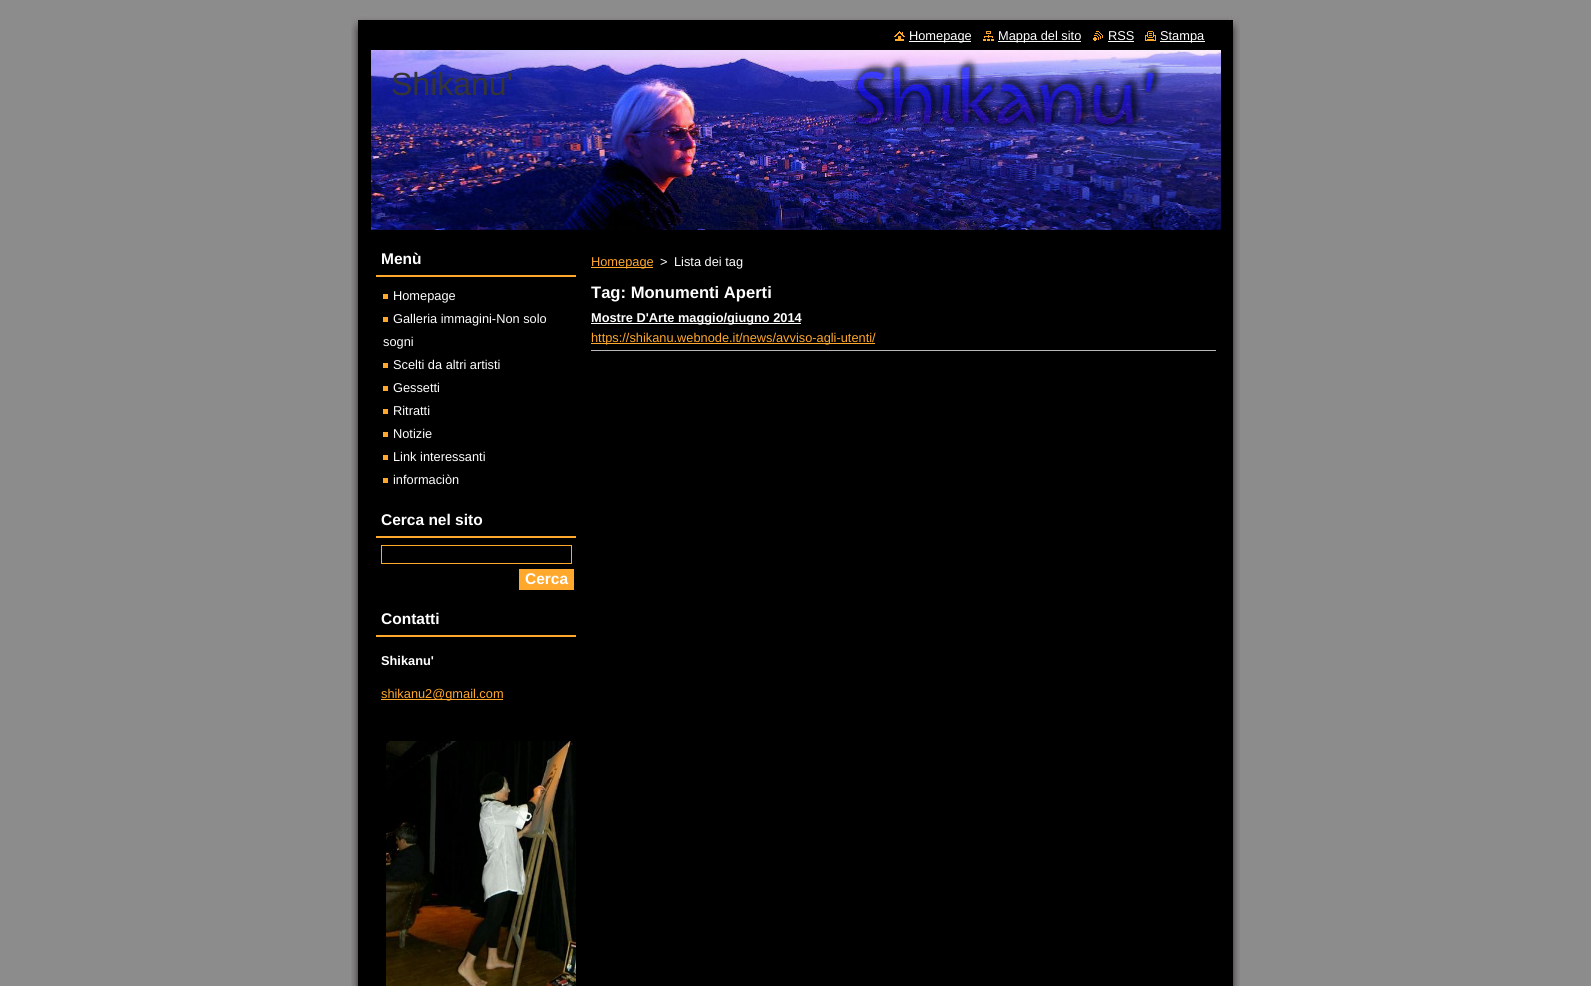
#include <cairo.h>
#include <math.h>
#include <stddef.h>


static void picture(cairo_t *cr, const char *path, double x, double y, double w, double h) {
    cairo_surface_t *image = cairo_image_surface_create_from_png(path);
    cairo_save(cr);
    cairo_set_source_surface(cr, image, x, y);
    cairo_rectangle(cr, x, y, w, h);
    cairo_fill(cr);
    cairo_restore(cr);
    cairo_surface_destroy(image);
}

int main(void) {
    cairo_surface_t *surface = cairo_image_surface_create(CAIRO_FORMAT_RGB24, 1591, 986);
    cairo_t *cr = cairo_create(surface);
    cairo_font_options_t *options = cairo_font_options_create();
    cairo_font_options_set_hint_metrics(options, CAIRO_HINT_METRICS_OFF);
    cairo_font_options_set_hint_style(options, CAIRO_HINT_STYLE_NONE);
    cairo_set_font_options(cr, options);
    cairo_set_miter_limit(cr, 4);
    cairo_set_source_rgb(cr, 0.549, 0.549, 0.549);
    cairo_paint(cr);
    picture(cr, "img1.png", 351, 31, 889, 931);
    picture(cr, "img2.png", 351, 15, 889, 16);
    picture(cr, "img3.png", 351, 962, 889, 24);
    picture(cr, "img4.png", 894, 31, 11, 10);
    cairo_set_source_rgb(cr, 1, 1, 1);
    cairo_rectangle(cr, 909, 41, 62, 1);
    cairo_fill(cr);
    cairo_select_font_face(cr, "Liberation Sans", CAIRO_FONT_SLANT_NORMAL, CAIRO_FONT_WEIGHT_NORMAL);
    cairo_set_font_size(cr, 12.8);
    cairo_move_to(cr, 909, 40);
    cairo_show_text(cr, "Homepage");
    picture(cr, "img5.png", 983, 31, 11, 10);
    cairo_rectangle(cr, 998, 41, 83, 1);
    cairo_fill(cr);
    cairo_move_to(cr, 998, 40);
    cairo_show_text(cr, "Mappa del sito");
    picture(cr, "img6.png", 1093, 31, 10, 10);
    cairo_move_to(cr, 1108, 40);
    cairo_show_text(cr, "RSS");
    cairo_rectangle(cr, 1108, 41, 26, 1);
    cairo_fill(cr);
    picture(cr, "img7.png", 1145, 31, 11, 10);
    cairo_rectangle(cr, 1160, 41, 45, 1);
    cairo_fill(cr);
    cairo_move_to(cr, 1160, 40);
    cairo_show_text(cr, "Stampa");
    picture(cr, "img8.png", 371, 50, 850, 180);
    cairo_set_font_size(cr, 32);
    cairo_set_source_rgb(cr, 0.208, 0.208, 0.208);
    cairo_move_to(cr, 391, 95);
    cairo_show_text(cr, "Shikanu'");
    cairo_set_source_rgb(cr, 1, 0.659, 0.173);
    cairo_rectangle(cr, 376, 275, 200, 2);
    cairo_fill(cr);
    cairo_select_font_face(cr, "Liberation Sans", CAIRO_FONT_SLANT_NORMAL, CAIRO_FONT_WEIGHT_BOLD);
    cairo_set_font_size(cr, 15.5);
    cairo_set_source_rgb(cr, 1, 1, 1);
    cairo_move_to(cr, 381, 264);
    cairo_show_text(cr, "Menù");
    cairo_select_font_face(cr, "Liberation Sans", CAIRO_FONT_SLANT_NORMAL, CAIRO_FONT_WEIGHT_NORMAL);
    cairo_set_font_size(cr, 12.8);
    cairo_move_to(cr, 393, 300);
    cairo_show_text(cr, "Homepage");
    cairo_set_source_rgb(cr, 1, 0.659, 0.176);
    cairo_rectangle(cr, 383, 294, 5, 5);
    cairo_fill(cr);
    cairo_set_source_rgb(cr, 1, 1, 1);
    cairo_move_to(cr, 393, 323);
    cairo_show_text(cr, "Galleria immagini-Non solo");
    cairo_set_source_rgb(cr, 1, 0.659, 0.176);
    cairo_rectangle(cr, 383, 317, 5, 5);
    cairo_fill(cr);
    cairo_set_source_rgb(cr, 1, 1, 1);
    cairo_move_to(cr, 383, 346);
    cairo_show_text(cr, "sogni");
    cairo_move_to(cr, 393, 369);
    cairo_show_text(cr, "Scelti da altri artisti");
    cairo_set_source_rgb(cr, 1, 0.659, 0.176);
    cairo_rectangle(cr, 383, 363, 5, 5);
    cairo_fill(cr);
    cairo_set_source_rgb(cr, 1, 1, 1);
    cairo_move_to(cr, 393, 392);
    cairo_show_text(cr, "Gessetti");
    cairo_set_source_rgb(cr, 1, 0.659, 0.176);
    cairo_rectangle(cr, 383, 386, 5, 5);
    cairo_fill(cr);
    cairo_set_source_rgb(cr, 1, 1, 1);
    cairo_move_to(cr, 393, 415);
    cairo_show_text(cr, "Ritratti");
    cairo_set_source_rgb(cr, 1, 0.659, 0.176);
    cairo_rectangle(cr, 383, 409, 5, 5);
    cairo_fill(cr);
    cairo_set_source_rgb(cr, 1, 1, 1);
    cairo_move_to(cr, 393, 438);
    cairo_show_text(cr, "Notizie");
    cairo_set_source_rgb(cr, 1, 0.659, 0.176);
    cairo_rectangle(cr, 383, 432, 5, 5);
    cairo_fill(cr);
    cairo_set_source_rgb(cr, 1, 1, 1);
    cairo_move_to(cr, 393, 461);
    cairo_show_text(cr, "Link interessanti");
    cairo_set_source_rgb(cr, 1, 0.659, 0.176);
    cairo_rectangle(cr, 383, 455, 5, 5);
    cairo_fill(cr);
    cairo_set_source_rgb(cr, 1, 1, 1);
    cairo_move_to(cr, 393, 484);
    cairo_show_text(cr, "informaciòn");
    cairo_set_source_rgb(cr, 1, 0.659, 0.176);
    cairo_rectangle(cr, 383, 478, 5, 5);
    cairo_fill(cr);
    cairo_set_source_rgb(cr, 1, 0.659, 0.173);
    cairo_rectangle(cr, 376, 536, 200, 2);
    cairo_fill(cr);
    cairo_select_font_face(cr, "Liberation Sans", CAIRO_FONT_SLANT_NORMAL, CAIRO_FONT_WEIGHT_BOLD);
    cairo_set_font_size(cr, 15.5);
    cairo_set_source_rgb(cr, 1, 1, 1);
    cairo_move_to(cr, 381, 525);
    cairo_show_text(cr, "Cerca nel sito");
    cairo_rectangle(cr, 381.5, 545.5, 190, 18);
    cairo_set_source_rgb(cr, 1, 0.659, 0.173);
    cairo_set_line_width(cr, 1);
    cairo_stroke(cr);
    cairo_rectangle(cr, 519, 569, 55, 21);
    cairo_fill(cr);
    cairo_set_source_rgb(cr, 1, 1, 1);
    cairo_move_to(cr, 525, 584);
    cairo_show_text(cr, "Cerca");
    cairo_set_source_rgb(cr, 1, 0.659, 0.173);
    cairo_rectangle(cr, 376, 635, 200, 2);
    cairo_fill(cr);
    cairo_set_source_rgb(cr, 1, 1, 1);
    cairo_move_to(cr, 381, 624);
    cairo_show_text(cr, "Contatti");
    cairo_set_font_size(cr, 12.8);
    cairo_move_to(cr, 381, 665);
    cairo_show_text(cr, "Shikanu'");
    cairo_set_source_rgb(cr, 1, 0.659, 0.173);
    cairo_rectangle(cr, 381, 699, 122, 1);
    cairo_fill(cr);
    cairo_select_font_face(cr, "Liberation Sans", CAIRO_FONT_SLANT_NORMAL, CAIRO_FONT_WEIGHT_NORMAL);
    cairo_move_to(cr, 381, 698);
    cairo_show_text(cr, "shikanu2@gmail.com");
    picture(cr, "img9.png", 386, 741, 190, 245);
    cairo_rectangle(cr, 591, 267, 62, 1);
    cairo_fill(cr);
    cairo_move_to(cr, 591, 266);
    cairo_show_text(cr, "Homepage");
    cairo_set_source_rgb(cr, 1, 1, 1);
    cairo_move_to(cr, 660, 266);
    cairo_show_text(cr, ">");
    cairo_move_to(cr, 674, 266);
    cairo_show_text(cr, "Lista dei tag");
    cairo_save(cr);
    cairo_rectangle(cr, 591, 250, 625, 131);
    cairo_clip(cr);
    cairo_select_font_face(cr, "Liberation Sans", CAIRO_FONT_SLANT_NORMAL, CAIRO_FONT_WEIGHT_BOLD);
    cairo_set_font_size(cr, 16.6);
    cairo_move_to(cr, 591, 298);
    cairo_show_text(cr, "Tag: Monumenti Aperti");
    cairo_restore(cr);
    cairo_set_source_rgb(cr, 0.725, 0.725, 0.725);
    cairo_rectangle(cr, 591, 350, 625, 1);
    cairo_fill(cr);
    cairo_set_source_rgb(cr, 1, 1, 1);
    cairo_rectangle(cr, 591, 323, 210, 1);
    cairo_fill(cr);
    cairo_select_font_face(cr, "Liberation Sans", CAIRO_FONT_SLANT_NORMAL, CAIRO_FONT_WEIGHT_BOLD);
    cairo_move_to(cr, 591, 322);
    cairo_show_text(cr, "Mostre D'Arte maggio/giugno 2014");
    cairo_set_source_rgb(cr, 1, 0.659, 0.173);
    cairo_rectangle(cr, 591, 343, 284, 1);
    cairo_fill(cr);
    cairo_select_font_face(cr, "Liberation Sans", CAIRO_FONT_SLANT_NORMAL, CAIRO_FONT_WEIGHT_NORMAL);
    cairo_move_to(cr, 591, 342);
    cairo_show_text(cr, "https://shikanu.webnode.it/news/avviso-agli-utenti/");
    cairo_surface_write_to_png(surface, "page.png");
    cairo_font_options_destroy(options);
    cairo_destroy(cr);
    cairo_surface_destroy(surface);
    return 0;
}
